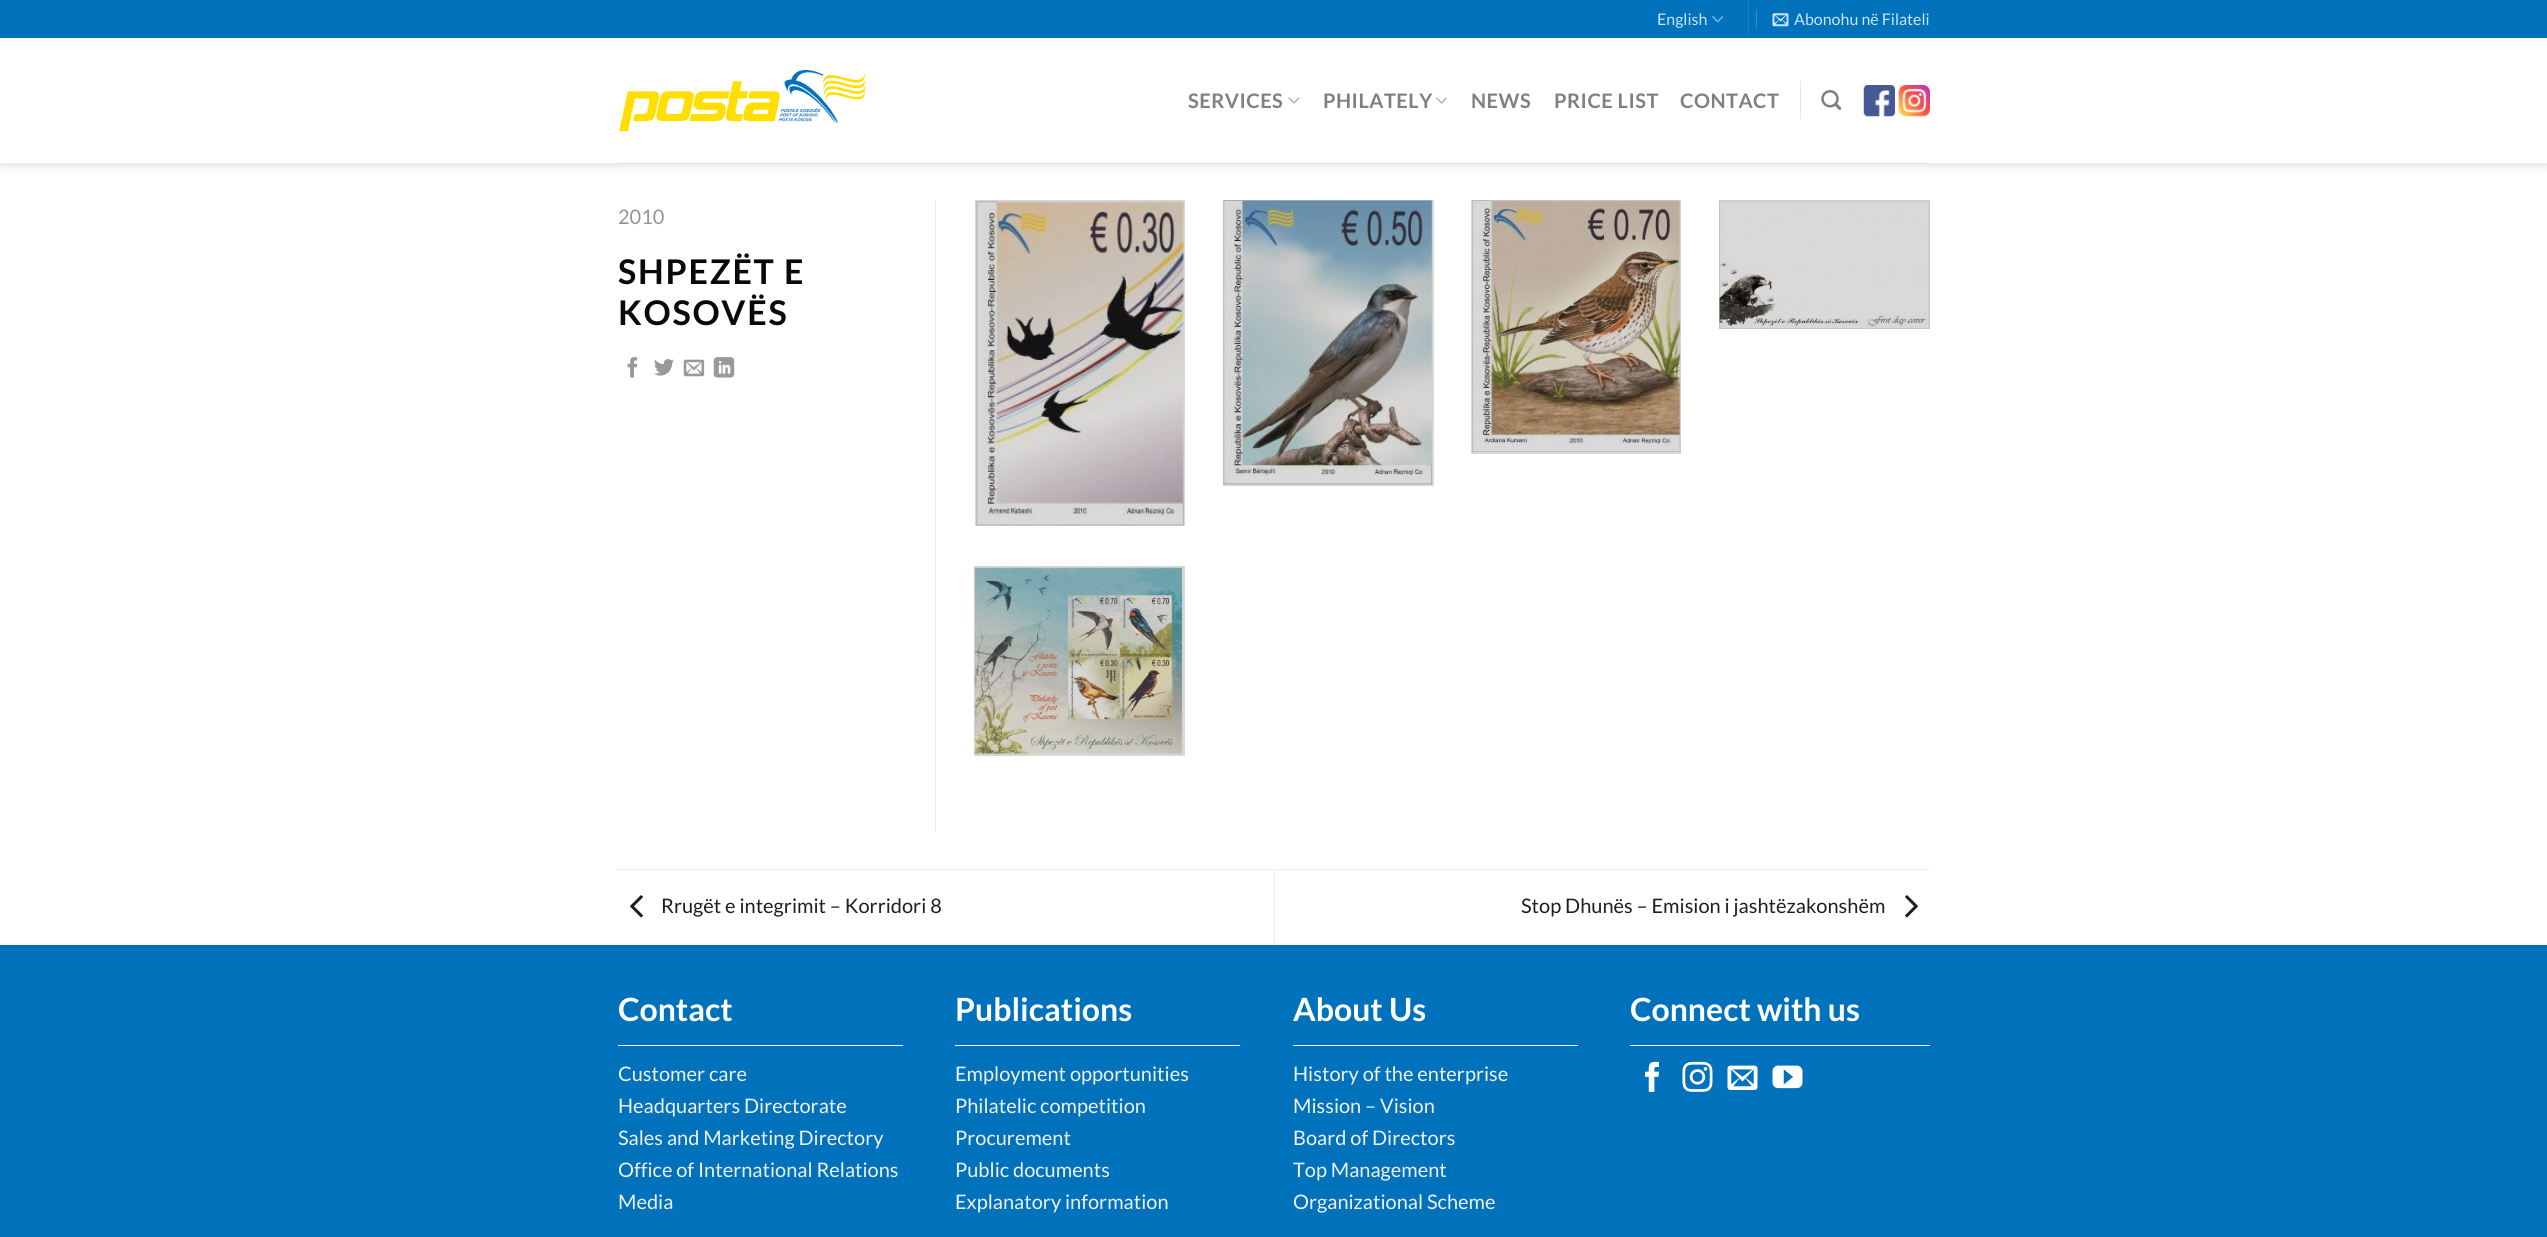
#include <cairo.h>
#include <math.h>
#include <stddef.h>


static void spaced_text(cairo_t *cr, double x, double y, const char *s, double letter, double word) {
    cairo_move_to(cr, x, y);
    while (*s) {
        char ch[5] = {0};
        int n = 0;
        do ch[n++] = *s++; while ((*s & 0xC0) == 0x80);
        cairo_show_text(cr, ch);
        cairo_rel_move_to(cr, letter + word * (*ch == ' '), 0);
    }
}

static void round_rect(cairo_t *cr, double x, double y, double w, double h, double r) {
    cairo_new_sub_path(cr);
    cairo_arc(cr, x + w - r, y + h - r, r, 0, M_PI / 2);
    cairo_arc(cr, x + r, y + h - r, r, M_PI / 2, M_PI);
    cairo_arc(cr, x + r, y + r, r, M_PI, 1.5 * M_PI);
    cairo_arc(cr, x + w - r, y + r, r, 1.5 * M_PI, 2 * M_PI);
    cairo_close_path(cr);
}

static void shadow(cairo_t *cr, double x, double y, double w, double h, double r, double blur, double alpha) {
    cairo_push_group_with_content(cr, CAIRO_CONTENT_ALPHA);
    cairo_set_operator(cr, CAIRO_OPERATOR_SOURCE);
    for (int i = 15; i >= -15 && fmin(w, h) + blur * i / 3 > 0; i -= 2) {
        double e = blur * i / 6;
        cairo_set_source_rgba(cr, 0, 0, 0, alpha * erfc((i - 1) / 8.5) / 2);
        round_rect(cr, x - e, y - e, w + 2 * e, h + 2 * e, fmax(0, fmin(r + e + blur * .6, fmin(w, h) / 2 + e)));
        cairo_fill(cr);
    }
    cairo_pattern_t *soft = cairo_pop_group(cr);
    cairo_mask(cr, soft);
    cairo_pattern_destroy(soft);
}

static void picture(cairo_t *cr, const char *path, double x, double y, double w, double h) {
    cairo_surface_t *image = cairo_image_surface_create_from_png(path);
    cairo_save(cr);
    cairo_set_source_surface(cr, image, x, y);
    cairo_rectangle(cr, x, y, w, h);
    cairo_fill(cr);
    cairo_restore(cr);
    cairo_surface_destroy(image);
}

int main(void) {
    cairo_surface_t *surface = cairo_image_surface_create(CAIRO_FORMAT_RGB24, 2547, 1237);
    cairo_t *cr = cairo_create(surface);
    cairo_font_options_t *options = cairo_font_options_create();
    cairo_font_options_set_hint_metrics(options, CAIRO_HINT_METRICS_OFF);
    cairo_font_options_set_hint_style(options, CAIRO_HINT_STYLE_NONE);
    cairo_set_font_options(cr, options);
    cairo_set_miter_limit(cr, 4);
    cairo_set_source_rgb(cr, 1, 1, 1);
    cairo_paint(cr);
    cairo_set_source_rgb(cr, 0.851, 0.851, 0.851);
    cairo_rectangle(cr, 974, 566, 211, 1);
    cairo_fill(cr);
    cairo_rectangle(cr, 1719, 328, 211, 1);
    cairo_fill(cr);
    cairo_rectangle(cr, 1471, 200, 210, 254);
    cairo_fill(cr);
    cairo_rectangle(cr, 1433, 200, 1, 286);
    cairo_fill(cr);
    cairo_save(cr);
    cairo_set_fill_rule(cr, CAIRO_FILL_RULE_EVEN_ODD);
    cairo_new_path(cr);
    cairo_move_to(cr, 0, 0);
    cairo_line_to(cr, 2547, 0);
    cairo_line_to(cr, 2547, 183);
    cairo_line_to(cr, 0, 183);
    cairo_close_path(cr);
    cairo_move_to(cr, 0, 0);
    cairo_line_to(cr, 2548, 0);
    cairo_line_to(cr, 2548, 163);
    cairo_line_to(cr, 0, 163);
    cairo_close_path(cr);
    cairo_clip(cr);
    cairo_set_source_rgb(cr, 0, 0, 0);
    shadow(cr, 1, 1, 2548, 163, 0, 6, 0.15);
    cairo_restore(cr);
    cairo_set_source_rgb(cr, 0, 0.447, 0.737);
    cairo_rectangle(cr, 0, 0, 2547, 38);
    cairo_fill(cr);
    cairo_select_font_face(cr, "Lato", CAIRO_FONT_SLANT_NORMAL, CAIRO_FONT_WEIGHT_NORMAL);
    cairo_set_font_size(cr, 16);
    cairo_set_source_rgb(cr, 0.8, 0.89, 0.949);
    cairo_move_to(cr, 1657, 25);
    cairo_show_text(cr, "English");
    picture(cr, "img1.png", 1712, 16, 12, 7);
    cairo_set_source_rgb(cr, 0.102, 0.502, 0.765);
    cairo_rectangle(cr, 1748, 0, 1, 38);
    cairo_fill(cr);
    cairo_set_source_rgb(cr, 0.2, 0.557, 0.788);
    cairo_rectangle(cr, 1756, 10, 1, 19);
    cairo_fill(cr);
    picture(cr, "img2.png", 1772, 13, 17, 14);
    cairo_set_source_rgb(cr, 0.8, 0.89, 0.949);
    cairo_move_to(cr, 1794, 25);
    cairo_show_text(cr, "Abonohu në Filateli");
    picture(cr, "img3.png", 619, 70, 247, 62);
    cairo_select_font_face(cr, "Lato", CAIRO_FONT_SLANT_NORMAL, CAIRO_FONT_WEIGHT_BOLD);
    cairo_set_font_size(cr, 20);
    cairo_set_source_rgb(cr, 0.502, 0.502, 0.502);
    spaced_text(cr, 1188, 108, "SERVICES", 0.5, 0);
    picture(cr, "img4.png", 1288, 97, 12, 7);
    spaced_text(cr, 1323, 108, "PHILATELY", 0.5, 0);
    picture(cr, "img5.png", 1436, 97, 11, 7);
    spaced_text(cr, 1471, 108, "NEWS", 0.5, 0);
    spaced_text(cr, 1554, 108, "PRICE LIST", 0.5, 0);
    spaced_text(cr, 1680, 108, "CONTACT", 0.5, 0);
    cairo_set_source_rgb(cr, 0.902, 0.902, 0.902);
    cairo_rectangle(cr, 1800, 81, 1, 38);
    cairo_fill(cr);
    picture(cr, "img6.png", 1821, 90, 21, 20);
    picture(cr, "img7.png", 1863, 85, 32, 32);
    picture(cr, "img8.png", 1898, 85, 32, 32);
    cairo_set_source_rgb(cr, 0.878, 0.878, 0.878);
    cairo_rectangle(cr, 618, 163, 1312, 1);
    cairo_fill(cr);
    cairo_set_source_rgba(cr, 1, 1, 1, 0.9);
    cairo_rectangle(cr, 0, 162, 2547, 1);
    cairo_fill(cr);
    cairo_set_source_rgb(cr, 0.925, 0.925, 0.925);
    cairo_rectangle(cr, 935, 200, 1, 631);
    cairo_fill(cr);
    cairo_select_font_face(cr, "Lato", CAIRO_FONT_SLANT_NORMAL, CAIRO_FONT_WEIGHT_NORMAL);
    cairo_set_source_rgb(cr, 0.58, 0.58, 0.58);
    cairo_move_to(cr, 618, 224);
    cairo_show_text(cr, "2010");
    cairo_select_font_face(cr, "Lato", CAIRO_FONT_SLANT_NORMAL, CAIRO_FONT_WEIGHT_BOLD);
    cairo_set_font_size(cr, 34);
    cairo_set_source_rgb(cr, 0.039, 0.039, 0.039);
    spaced_text(cr, 618, 284, "SHPEZËT E", 1.75, 0);
    spaced_text(cr, 618, 325, "KOSOVËS", 1.75, 0);
    picture(cr, "img9.png", 627, 357, 11, 21);
    picture(cr, "img10.png", 654, 359, 20, 17);
    picture(cr, "img11.png", 683, 359, 22, 18);
    picture(cr, "img12.png", 713, 357, 22, 21);
    picture(cr, "img13.png", 975, 200, 210, 326);
    picture(cr, "img14.png", 1222, 200, 212, 286);
    picture(cr, "img15.png", 1471, 200, 210, 253);
    picture(cr, "img16.png", 1719, 200, 211, 129);
    picture(cr, "img17.png", 974, 566, 211, 190);
    cairo_set_source_rgb(cr, 0.925, 0.925, 0.925);
    cairo_rectangle(cr, 618, 869, 1312, 1);
    cairo_fill(cr);
    picture(cr, "img18.png", 630, 895, 13, 23);
    cairo_select_font_face(cr, "Lato", CAIRO_FONT_SLANT_NORMAL, CAIRO_FONT_WEIGHT_NORMAL);
    cairo_set_font_size(cr, 20);
    cairo_set_source_rgb(cr, 0.118, 0.118, 0.118);
    cairo_move_to(cr, 661, 913);
    cairo_show_text(cr, "Rrugët e integrimit – Korridori 8");
    cairo_set_source_rgb(cr, 0.925, 0.925, 0.925);
    cairo_rectangle(cr, 1274, 870, 1, 75);
    cairo_fill(cr);
    cairo_set_source_rgb(cr, 0.118, 0.118, 0.118);
    cairo_move_to(cr, 1521, 913);
    cairo_show_text(cr, "Stop Dhunës – Emision i jashtëzakonshëm");
    picture(cr, "img19.png", 1905, 895, 13, 23);
    cairo_set_source_rgb(cr, 0, 0.447, 0.737);
    cairo_rectangle(cr, 0, 945, 2547, 292);
    cairo_fill(cr);
    cairo_select_font_face(cr, "Lato", CAIRO_FONT_SLANT_NORMAL, CAIRO_FONT_WEIGHT_BOLD);
    cairo_set_font_size(cr, 32);
    cairo_set_source_rgb(cr, 1, 1, 1);
    cairo_move_to(cr, 618, 1021);
    cairo_show_text(cr, "Contact");
    cairo_rectangle(cr, 618, 1045, 285, 1);
    cairo_fill(cr);
    cairo_select_font_face(cr, "Lato", CAIRO_FONT_SLANT_NORMAL, CAIRO_FONT_WEIGHT_NORMAL);
    cairo_set_font_size(cr, 20);
    cairo_set_source_rgb(cr, 0.945, 0.945, 0.945);
    cairo_move_to(cr, 618, 1081);
    cairo_show_text(cr, "Customer care");
    cairo_move_to(cr, 618, 1113);
    cairo_show_text(cr, "Headquarters Directorate");
    cairo_move_to(cr, 618, 1145);
    cairo_show_text(cr, "Sales and Marketing Directory");
    cairo_move_to(cr, 618, 1177);
    cairo_show_text(cr, "Office of International Relations");
    cairo_move_to(cr, 618, 1209);
    cairo_show_text(cr, "Media");
    cairo_select_font_face(cr, "Lato", CAIRO_FONT_SLANT_NORMAL, CAIRO_FONT_WEIGHT_BOLD);
    cairo_set_font_size(cr, 32);
    cairo_set_source_rgb(cr, 1, 1, 1);
    cairo_move_to(cr, 955, 1021);
    cairo_show_text(cr, "Publications");
    cairo_rectangle(cr, 955, 1045, 285, 1);
    cairo_fill(cr);
    cairo_select_font_face(cr, "Lato", CAIRO_FONT_SLANT_NORMAL, CAIRO_FONT_WEIGHT_NORMAL);
    cairo_set_font_size(cr, 20);
    cairo_set_source_rgb(cr, 0.945, 0.945, 0.945);
    cairo_move_to(cr, 955, 1081);
    cairo_show_text(cr, "Employment opportunities");
    cairo_move_to(cr, 955, 1113);
    cairo_show_text(cr, "Philatelic competition");
    cairo_move_to(cr, 955, 1145);
    cairo_show_text(cr, "Procurement");
    cairo_move_to(cr, 955, 1177);
    cairo_show_text(cr, "Public documents");
    cairo_move_to(cr, 955, 1209);
    cairo_show_text(cr, "Explanatory information");
    cairo_select_font_face(cr, "Lato", CAIRO_FONT_SLANT_NORMAL, CAIRO_FONT_WEIGHT_BOLD);
    cairo_set_font_size(cr, 32);
    cairo_set_source_rgb(cr, 1, 1, 1);
    cairo_move_to(cr, 1293, 1021);
    cairo_show_text(cr, "About Us");
    cairo_rectangle(cr, 1293, 1045, 285, 1);
    cairo_fill(cr);
    cairo_select_font_face(cr, "Lato", CAIRO_FONT_SLANT_NORMAL, CAIRO_FONT_WEIGHT_NORMAL);
    cairo_set_font_size(cr, 20);
    cairo_set_source_rgb(cr, 0.945, 0.945, 0.945);
    cairo_move_to(cr, 1293, 1081);
    cairo_show_text(cr, "History of the enterprise");
    cairo_move_to(cr, 1293, 1113);
    cairo_show_text(cr, "Mission – Vision");
    cairo_move_to(cr, 1293, 1145);
    cairo_show_text(cr, "Board of Directors");
    cairo_move_to(cr, 1293, 1177);
    cairo_show_text(cr, "Top Management");
    cairo_move_to(cr, 1293, 1209);
    cairo_show_text(cr, "Organizational Scheme");
    cairo_select_font_face(cr, "Lato", CAIRO_FONT_SLANT_NORMAL, CAIRO_FONT_WEIGHT_BOLD);
    cairo_set_font_size(cr, 32);
    cairo_set_source_rgb(cr, 1, 1, 1);
    cairo_move_to(cr, 1630, 1021);
    cairo_show_text(cr, "Connect with us");
    cairo_rectangle(cr, 1630, 1045, 300, 1);
    cairo_fill(cr);
    picture(cr, "img20.png", 1645, 1061, 14, 31);
    picture(cr, "img21.png", 1682, 1061, 31, 31);
    picture(cr, "img22.png", 1727, 1065, 31, 25);
    picture(cr, "img23.png", 1772, 1065, 31, 24);
    cairo_surface_write_to_png(surface, "page.png");
    cairo_font_options_destroy(options);
    cairo_destroy(cr);
    cairo_surface_destroy(surface);
    return 0;
}
